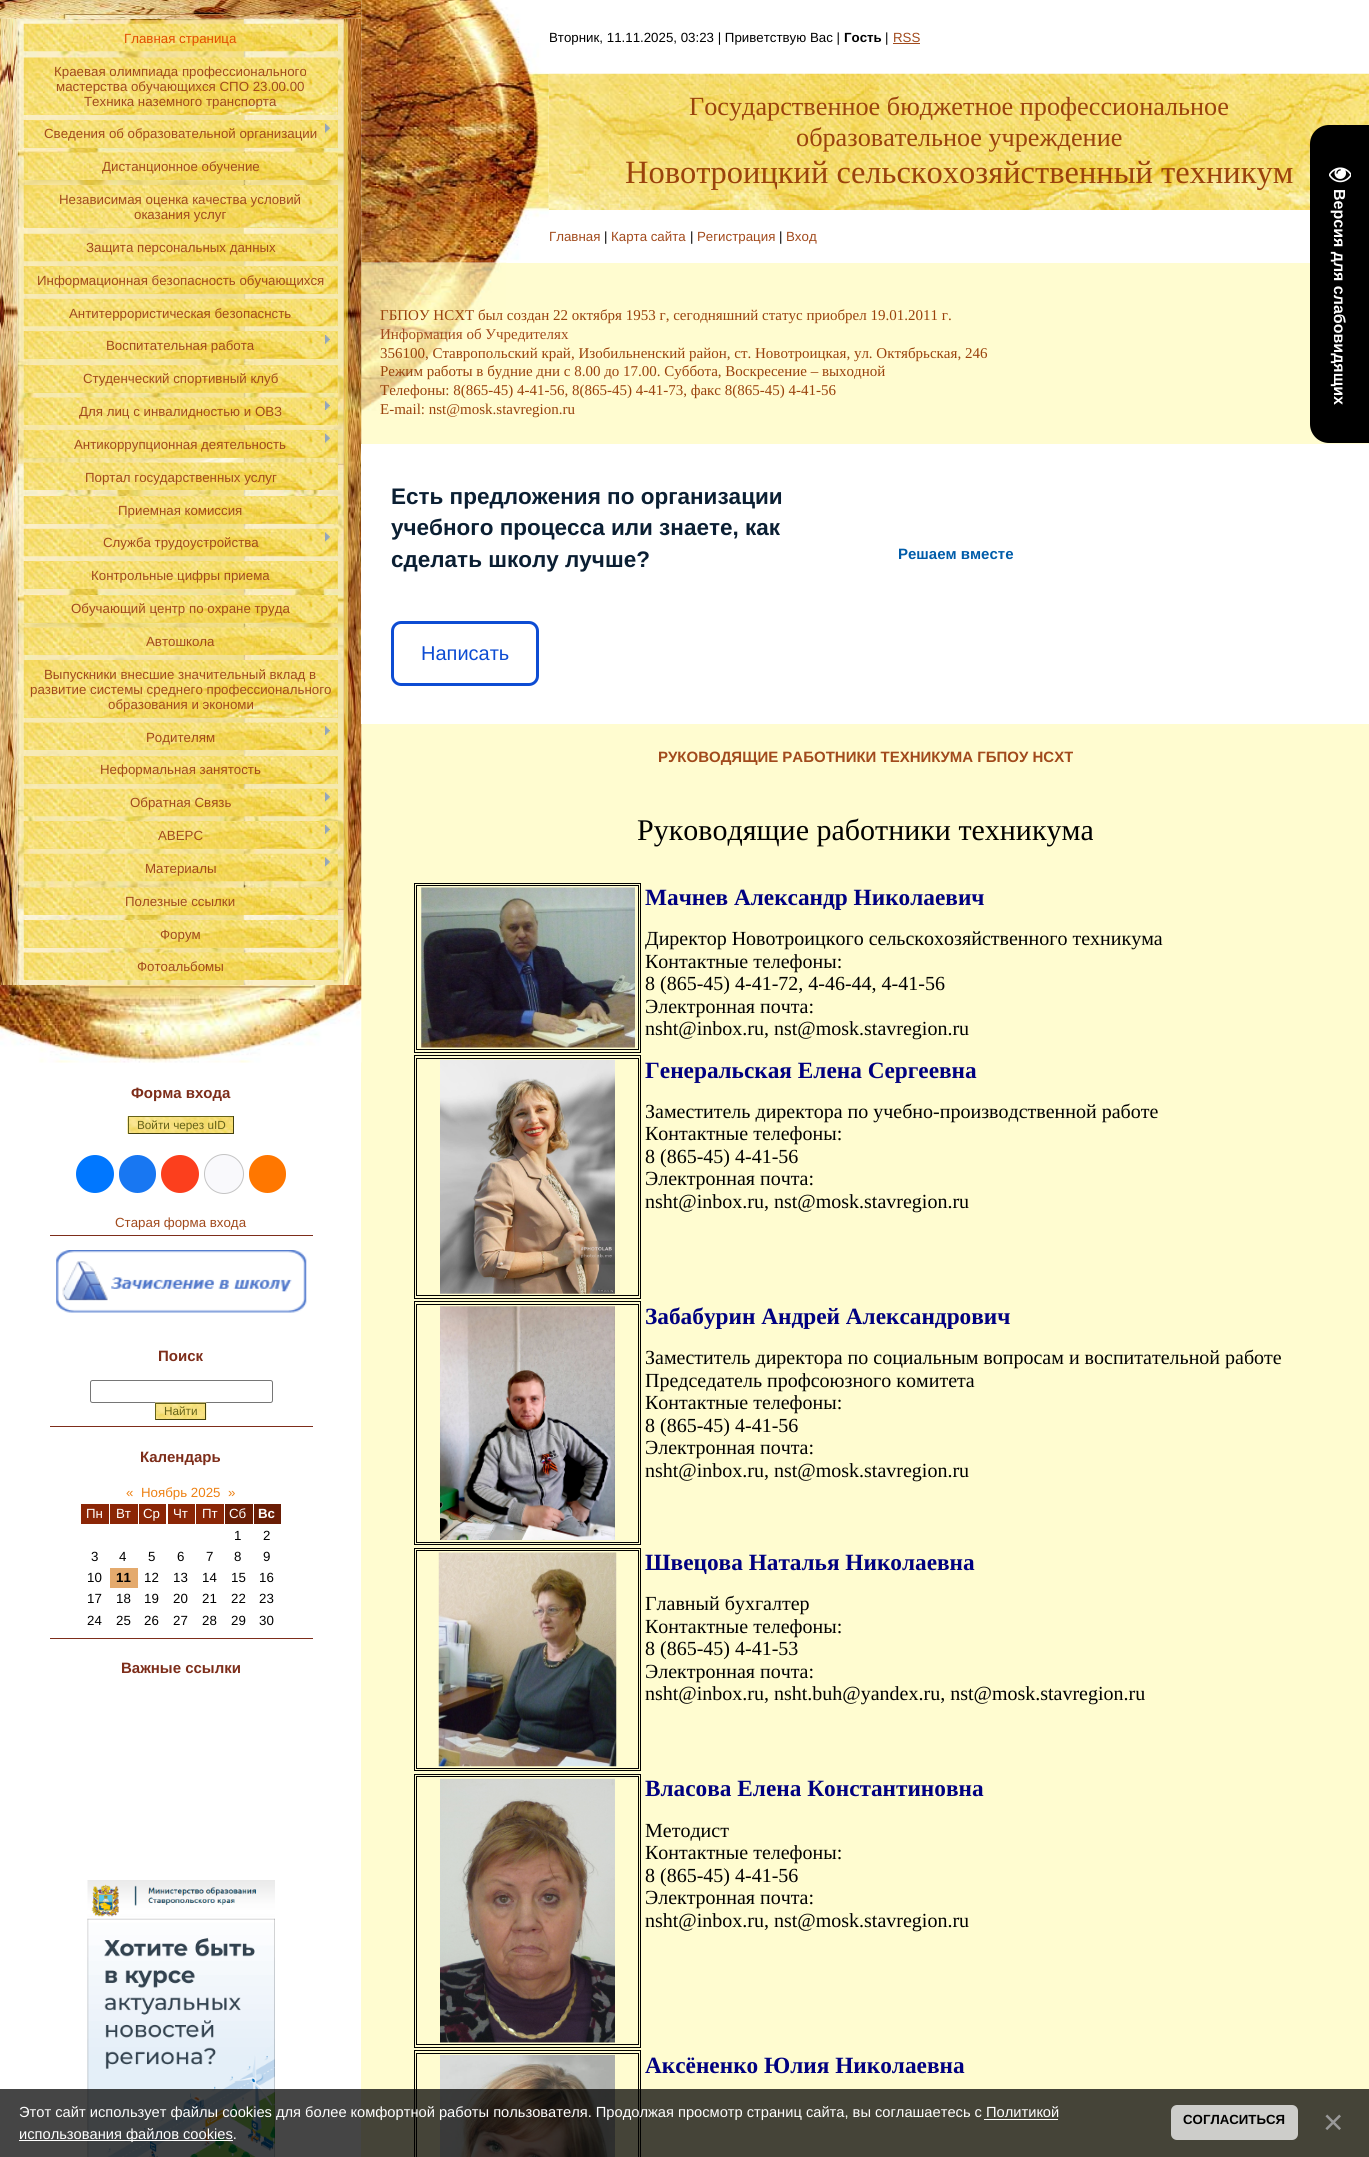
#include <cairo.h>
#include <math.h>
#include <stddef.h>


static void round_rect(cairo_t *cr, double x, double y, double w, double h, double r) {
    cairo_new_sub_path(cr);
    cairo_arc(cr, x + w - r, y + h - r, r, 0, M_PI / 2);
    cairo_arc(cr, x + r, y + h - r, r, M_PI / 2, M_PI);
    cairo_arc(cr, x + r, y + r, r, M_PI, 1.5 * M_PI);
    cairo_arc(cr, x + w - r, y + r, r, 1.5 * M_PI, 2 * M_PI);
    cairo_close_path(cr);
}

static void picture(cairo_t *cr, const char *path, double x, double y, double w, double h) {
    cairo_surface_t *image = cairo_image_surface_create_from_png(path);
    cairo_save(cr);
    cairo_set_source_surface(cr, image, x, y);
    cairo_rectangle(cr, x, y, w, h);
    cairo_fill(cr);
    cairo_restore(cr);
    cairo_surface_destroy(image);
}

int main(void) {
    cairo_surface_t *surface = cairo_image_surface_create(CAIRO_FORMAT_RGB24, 1369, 2157);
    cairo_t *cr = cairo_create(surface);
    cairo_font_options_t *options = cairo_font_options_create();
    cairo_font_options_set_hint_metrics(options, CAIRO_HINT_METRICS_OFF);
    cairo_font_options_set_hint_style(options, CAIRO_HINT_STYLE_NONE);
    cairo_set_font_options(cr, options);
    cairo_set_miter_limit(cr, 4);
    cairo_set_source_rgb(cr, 1, 1, 1);
    cairo_paint(cr);
    picture(cr, "img3.png", 17, 18, 327, 967);
    picture(cr, "img1.png", 0, 0, 362, 19);
    picture(cr, "img2.png", 0, 18, 18, 967);
    cairo_set_source_rgb(cr, 0.949, 0.855, 0.424);
    cairo_rectangle(cr, 337, 24, 1, 27);
    cairo_fill(cr);
    picture(cr, "img4.png", 23, 23, 315, 29);
    cairo_select_font_face(cr, "Liberation Sans", CAIRO_FONT_SLANT_NORMAL, CAIRO_FONT_WEIGHT_NORMAL);
    cairo_set_font_size(cr, 13.3);
    cairo_set_source_rgb(cr, 0.89, 0.306, 0);
    cairo_move_to(cr, 124, 43);
    cairo_show_text(cr, "Главная страница");
    cairo_set_source_rgb(cr, 0.949, 0.855, 0.424);
    cairo_rectangle(cr, 337, 58, 1, 57);
    cairo_fill(cr);
    picture(cr, "img5.png", 23, 57, 315, 58);
    cairo_set_source_rgb(cr, 0.631, 0.29, 0.11);
    cairo_move_to(cr, 54, 76);
    cairo_show_text(cr, "Краевая олимпиада профессионального");
    cairo_move_to(cr, 56, 91);
    cairo_show_text(cr, "мастерства обучающихся СПО 23.00.00");
    cairo_move_to(cr, 84, 106);
    cairo_show_text(cr, "Техника наземного транспорта");
    cairo_set_source_rgb(cr, 0.949, 0.855, 0.424);
    cairo_rectangle(cr, 24, 120, 314, 28);
    cairo_fill(cr);
    picture(cr, "img6.png", 23, 120, 315, 28);
    cairo_set_source_rgb(cr, 0.631, 0.29, 0.11);
    cairo_move_to(cr, 44, 138);
    cairo_show_text(cr, "Сведения об образовательной организации");
    picture(cr, "img7.png", 325, 123, 5, 10);
    cairo_set_source_rgb(cr, 0.949, 0.855, 0.424);
    cairo_rectangle(cr, 337, 153, 1, 27);
    cairo_fill(cr);
    picture(cr, "img8.png", 23, 152, 315, 28);
    cairo_set_source_rgb(cr, 0.631, 0.29, 0.11);
    cairo_move_to(cr, 102, 171);
    cairo_show_text(cr, "Дистанционное обучение");
    cairo_set_source_rgb(cr, 0.949, 0.855, 0.424);
    cairo_rectangle(cr, 24, 185, 314, 43);
    cairo_fill(cr);
    picture(cr, "img9.png", 23, 185, 315, 43);
    cairo_set_source_rgb(cr, 0.631, 0.29, 0.11);
    cairo_move_to(cr, 59, 204);
    cairo_show_text(cr, "Независимая оценка качества условий");
    cairo_move_to(cr, 134, 219);
    cairo_show_text(cr, "оказания услуг");
    cairo_set_source_rgb(cr, 0.949, 0.855, 0.424);
    cairo_rectangle(cr, 337, 234, 1, 27);
    cairo_fill(cr);
    picture(cr, "img10.png", 23, 233, 315, 29);
    cairo_set_source_rgb(cr, 0.631, 0.29, 0.11);
    cairo_move_to(cr, 86, 252);
    cairo_show_text(cr, "Защита персональных данных");
    cairo_set_source_rgb(cr, 0.949, 0.855, 0.424);
    cairo_rectangle(cr, 24, 266, 314, 28);
    cairo_fill(cr);
    picture(cr, "img11.png", 23, 266, 315, 28);
    cairo_set_source_rgb(cr, 0.631, 0.29, 0.11);
    cairo_move_to(cr, 37, 285);
    cairo_show_text(cr, "Информационная безопасность обучающихся");
    cairo_set_source_rgb(cr, 0.949, 0.855, 0.424);
    cairo_rectangle(cr, 337, 299, 1, 27);
    cairo_fill(cr);
    picture(cr, "img12.png", 23, 298, 315, 29);
    cairo_set_source_rgb(cr, 0.631, 0.29, 0.11);
    cairo_move_to(cr, 69, 318);
    cairo_show_text(cr, "Антитеррористическая безопаснсть");
    cairo_set_source_rgb(cr, 0.949, 0.855, 0.424);
    cairo_rectangle(cr, 24, 331, 314, 28);
    cairo_fill(cr);
    picture(cr, "img13.png", 23, 331, 315, 28);
    cairo_set_source_rgb(cr, 0.631, 0.29, 0.11);
    cairo_move_to(cr, 106, 350);
    cairo_show_text(cr, "Воспитательная работа");
    picture(cr, "img14.png", 325, 335, 5, 9);
    cairo_set_source_rgb(cr, 0.949, 0.855, 0.424);
    cairo_rectangle(cr, 24, 365, 314, 28);
    cairo_fill(cr);
    picture(cr, "img15.png", 23, 365, 315, 28);
    cairo_set_source_rgb(cr, 0.631, 0.29, 0.11);
    cairo_move_to(cr, 83, 383);
    cairo_show_text(cr, "Студенческий спортивный клуб");
    cairo_set_source_rgb(cr, 0.949, 0.855, 0.424);
    cairo_rectangle(cr, 337, 398, 1, 27);
    cairo_fill(cr);
    picture(cr, "img16.png", 23, 397, 315, 28);
    cairo_set_source_rgb(cr, 0.631, 0.29, 0.11);
    cairo_move_to(cr, 79, 416);
    cairo_show_text(cr, "Для лиц с инвалидностью и ОВЗ");
    picture(cr, "img17.png", 325, 401, 5, 9);
    cairo_set_source_rgb(cr, 0.949, 0.855, 0.424);
    cairo_rectangle(cr, 24, 430, 314, 28);
    cairo_fill(cr);
    picture(cr, "img18.png", 23, 430, 315, 28);
    picture(cr, "img7.png", 325, 433, 5, 10);
    cairo_set_source_rgb(cr, 0.631, 0.29, 0.11);
    cairo_move_to(cr, 74, 449);
    cairo_show_text(cr, "Антикоррупционная деятельность");
    cairo_set_source_rgb(cr, 0.949, 0.855, 0.424);
    cairo_rectangle(cr, 337, 463, 1, 27);
    cairo_fill(cr);
    picture(cr, "img19.png", 23, 462, 315, 28);
    cairo_set_source_rgb(cr, 0.631, 0.29, 0.11);
    cairo_move_to(cr, 85, 482);
    cairo_show_text(cr, "Портал государственных услуг");
    cairo_set_source_rgb(cr, 0.949, 0.855, 0.424);
    cairo_rectangle(cr, 24, 496, 314, 28);
    cairo_fill(cr);
    picture(cr, "img20.png", 23, 496, 315, 28);
    cairo_set_source_rgb(cr, 0.631, 0.29, 0.11);
    cairo_move_to(cr, 118, 515);
    cairo_show_text(cr, "Приемная комиссия");
    cairo_set_source_rgb(cr, 0.949, 0.855, 0.424);
    cairo_rectangle(cr, 337, 529, 1, 27);
    cairo_fill(cr);
    picture(cr, "img21.png", 23, 528, 315, 29);
    cairo_set_source_rgb(cr, 0.631, 0.29, 0.11);
    cairo_move_to(cr, 103, 547);
    cairo_show_text(cr, "Служба трудоустройства");
    picture(cr, "img22.png", 325, 532, 5, 10);
    cairo_set_source_rgb(cr, 0.949, 0.855, 0.424);
    cairo_rectangle(cr, 24, 561, 314, 28);
    cairo_fill(cr);
    picture(cr, "img23.png", 23, 561, 315, 28);
    cairo_set_source_rgb(cr, 0.631, 0.29, 0.11);
    cairo_move_to(cr, 91, 580);
    cairo_show_text(cr, "Контрольные цифры приема");
    cairo_set_source_rgb(cr, 0.949, 0.855, 0.424);
    cairo_rectangle(cr, 24, 595, 314, 28);
    cairo_fill(cr);
    picture(cr, "img24.png", 23, 595, 315, 28);
    cairo_set_source_rgb(cr, 0.631, 0.29, 0.11);
    cairo_move_to(cr, 71, 613);
    cairo_show_text(cr, "Обучающий центр по охране труда");
    cairo_set_source_rgb(cr, 0.949, 0.855, 0.424);
    cairo_rectangle(cr, 337, 628, 1, 27);
    cairo_fill(cr);
    picture(cr, "img25.png", 23, 627, 315, 28);
    cairo_set_source_rgb(cr, 0.631, 0.29, 0.11);
    cairo_move_to(cr, 146, 646);
    cairo_show_text(cr, "Автошкола");
    cairo_set_source_rgb(cr, 0.949, 0.855, 0.424);
    cairo_rectangle(cr, 24, 660, 314, 58);
    cairo_fill(cr);
    picture(cr, "img26.png", 23, 660, 315, 58);
    cairo_set_source_rgb(cr, 0.631, 0.29, 0.11);
    cairo_move_to(cr, 44, 679);
    cairo_show_text(cr, "Выпускники внесшие значительный вклад в");
    cairo_move_to(cr, 30, 694);
    cairo_show_text(cr, "развитие системы среднего профессионального");
    cairo_move_to(cr, 108, 709);
    cairo_show_text(cr, "образования и экономи");
    cairo_set_source_rgb(cr, 0.949, 0.855, 0.424);
    cairo_rectangle(cr, 337, 723, 1, 27);
    cairo_fill(cr);
    picture(cr, "img27.png", 23, 722, 315, 28);
    picture(cr, "img17.png", 325, 726, 5, 9);
    cairo_set_source_rgb(cr, 0.631, 0.29, 0.11);
    cairo_move_to(cr, 146, 742);
    cairo_show_text(cr, "Родителям");
    cairo_set_source_rgb(cr, 0.949, 0.855, 0.424);
    cairo_rectangle(cr, 24, 756, 314, 28);
    cairo_fill(cr);
    picture(cr, "img28.png", 23, 756, 315, 28);
    cairo_set_source_rgb(cr, 0.631, 0.29, 0.11);
    cairo_move_to(cr, 100, 774);
    cairo_show_text(cr, "Неформальная занятость");
    cairo_set_source_rgb(cr, 0.949, 0.855, 0.424);
    cairo_rectangle(cr, 337, 789, 1, 27);
    cairo_fill(cr);
    picture(cr, "img29.png", 23, 788, 315, 29);
    cairo_set_source_rgb(cr, 0.631, 0.29, 0.11);
    cairo_move_to(cr, 130, 807);
    cairo_show_text(cr, "Обратная Связь");
    picture(cr, "img22.png", 325, 792, 5, 10);
    cairo_set_source_rgb(cr, 0.949, 0.855, 0.424);
    cairo_rectangle(cr, 24, 821, 314, 28);
    cairo_fill(cr);
    picture(cr, "img30.png", 23, 821, 315, 28);
    cairo_set_source_rgb(cr, 0.631, 0.29, 0.11);
    cairo_move_to(cr, 158, 840);
    cairo_show_text(cr, "АВЕРС");
    picture(cr, "img14.png", 325, 825, 5, 9);
    cairo_set_source_rgb(cr, 0.949, 0.855, 0.424);
    cairo_rectangle(cr, 337, 854, 1, 27);
    cairo_fill(cr);
    picture(cr, "img31.png", 23, 853, 315, 29);
    picture(cr, "img22.png", 325, 857, 5, 10);
    cairo_set_source_rgb(cr, 0.631, 0.29, 0.11);
    cairo_move_to(cr, 145, 873);
    cairo_show_text(cr, "Материалы");
    cairo_set_source_rgb(cr, 0.949, 0.855, 0.424);
    cairo_rectangle(cr, 337, 888, 1, 27);
    cairo_fill(cr);
    picture(cr, "img32.png", 23, 887, 315, 28);
    cairo_set_source_rgb(cr, 0.631, 0.29, 0.11);
    cairo_move_to(cr, 125, 906);
    cairo_show_text(cr, "Полезные ссылки");
    cairo_set_source_rgb(cr, 0.949, 0.855, 0.424);
    cairo_rectangle(cr, 24, 920, 314, 28);
    cairo_fill(cr);
    picture(cr, "img33.png", 23, 920, 315, 28);
    cairo_set_source_rgb(cr, 0.631, 0.29, 0.11);
    cairo_move_to(cr, 160, 939);
    cairo_show_text(cr, "Форум");
    cairo_set_source_rgb(cr, 0.949, 0.855, 0.424);
    cairo_rectangle(cr, 337, 953, 1, 27);
    cairo_fill(cr);
    picture(cr, "img34.png", 23, 952, 315, 28);
    cairo_set_source_rgb(cr, 0.631, 0.29, 0.11);
    cairo_move_to(cr, 137, 971);
    cairo_show_text(cr, "Фотоальбомы");
    cairo_set_source_rgb(cr, 1, 0.988, 0.816);
    cairo_rectangle(cr, 361, 263, 1008, 181);
    cairo_fill(cr);
    picture(cr, "img44.png", 361, 262, 146, 149);
    cairo_rectangle(cr, 361, 724, 1008, 1433);
    cairo_fill(cr);
    picture(cr, "img35.png", 343, 18, 19, 967);
    picture(cr, "img36.png", 0, 985, 362, 78);
    cairo_set_source_rgb(cr, 0.49, 0.176, 0.102);
    cairo_rectangle(cr, 50, 1235, 263, 1);
    cairo_fill(cr);
    cairo_select_font_face(cr, "Liberation Sans", CAIRO_FONT_SLANT_NORMAL, CAIRO_FONT_WEIGHT_BOLD);
    cairo_set_font_size(cr, 15);
    cairo_move_to(cr, 131, 1098);
    cairo_show_text(cr, "Форма входа");
    picture(cr, "img37.png", 127, 1116, 106, 18);
    cairo_set_source_rgb(cr, 0.396, 0.384, 0.098);
    cairo_rectangle(cr, 128, 1116, 106, 1);
    cairo_fill(cr);
    cairo_set_source_rgb(cr, 0.263, 0.255, 0.067);
    cairo_rectangle(cr, 233, 1116, 1, 18);
    cairo_fill(cr);
    cairo_rectangle(cr, 128, 1133, 106, 1);
    cairo_fill(cr);
    cairo_set_source_rgb(cr, 0.396, 0.384, 0.098);
    cairo_rectangle(cr, 128, 1116, 1, 18);
    cairo_fill(cr);
    cairo_select_font_face(cr, "Liberation Sans", CAIRO_FONT_SLANT_NORMAL, CAIRO_FONT_WEIGHT_NORMAL);
    cairo_set_font_size(cr, 11.75);
    cairo_move_to(cr, 137, 1129);
    cairo_show_text(cr, "Войти через uID");
    cairo_set_source_rgb(cr, 0, 0.467, 1);
    cairo_new_path(cr);
    cairo_arc(cr, 95, 1174, 19, 0, 2 * M_PI);
    cairo_fill(cr);
    cairo_set_source_rgb(cr, 0.094, 0.467, 0.949);
    round_rect(cr, 119, 1155, 37, 38, 18.5);
    cairo_fill(cr);
    cairo_set_source_rgb(cr, 0.988, 0.247, 0.114);
    cairo_arc(cr, 180, 1174, 19, 0, 2 * M_PI);
    cairo_fill(cr);
    cairo_set_source_rgb(cr, 0.973, 0.973, 0.988);
    cairo_arc(cr, 224, 1174, 19.5, 0, 2 * M_PI);
    cairo_fill_preserve(cr);
    cairo_set_source_rgb(cr, 0.769, 0.769, 0.769);
    cairo_set_line_width(cr, 1);
    cairo_stroke(cr);
    cairo_set_source_rgb(cr, 1, 0.467, 0);
    round_rect(cr, 249, 1155, 37, 38, 18.5);
    cairo_fill(cr);
    cairo_set_font_size(cr, 13.3);
    cairo_set_source_rgb(cr, 0.631, 0.29, 0.11);
    cairo_move_to(cr, 115, 1227);
    cairo_show_text(cr, "Старая форма входа");
    picture(cr, "img38.png", 56, 1250, 251, 63);
    cairo_set_source_rgb(cr, 0.49, 0.176, 0.102);
    cairo_rectangle(cr, 50, 1426, 263, 1);
    cairo_fill(cr);
    cairo_select_font_face(cr, "Liberation Sans", CAIRO_FONT_SLANT_NORMAL, CAIRO_FONT_WEIGHT_BOLD);
    cairo_set_font_size(cr, 15);
    cairo_move_to(cr, 158, 1361);
    cairo_show_text(cr, "Поиск");
    round_rect(cr, 90.5, 1380.5, 182, 22, 2);
    cairo_set_source_rgb(cr, 0.463, 0.463, 0.463);
    cairo_stroke(cr);
    picture(cr, "img39.png", 155, 1402, 52, 18);
    cairo_set_source_rgb(cr, 0.396, 0.384, 0.098);
    cairo_rectangle(cr, 155, 1403, 51, 1);
    cairo_fill(cr);
    cairo_set_source_rgb(cr, 0.263, 0.255, 0.067);
    cairo_rectangle(cr, 205, 1403, 1, 17);
    cairo_fill(cr);
    cairo_rectangle(cr, 155, 1419, 51, 1);
    cairo_fill(cr);
    cairo_set_source_rgb(cr, 0.396, 0.384, 0.098);
    cairo_rectangle(cr, 155, 1403, 1, 17);
    cairo_fill(cr);
    cairo_select_font_face(cr, "Liberation Sans", CAIRO_FONT_SLANT_NORMAL, CAIRO_FONT_WEIGHT_NORMAL);
    cairo_set_font_size(cr, 11.75);
    cairo_move_to(cr, 164, 1415);
    cairo_show_text(cr, "Найти");
    cairo_set_source_rgb(cr, 0.49, 0.176, 0.102);
    cairo_rectangle(cr, 50, 1638, 263, 1);
    cairo_fill(cr);
    cairo_select_font_face(cr, "Liberation Sans", CAIRO_FONT_SLANT_NORMAL, CAIRO_FONT_WEIGHT_BOLD);
    cairo_set_font_size(cr, 15);
    cairo_move_to(cr, 140, 1462);
    cairo_show_text(cr, "Календарь");
    cairo_select_font_face(cr, "Liberation Sans", CAIRO_FONT_SLANT_NORMAL, CAIRO_FONT_WEIGHT_NORMAL);
    cairo_set_font_size(cr, 13.3);
    cairo_set_source_rgb(cr, 0.929, 0.506, 0.078);
    cairo_move_to(cr, 126, 1497);
    cairo_show_text(cr, "«");
    cairo_move_to(cr, 141, 1497);
    cairo_show_text(cr, "Ноябрь 2025");
    cairo_move_to(cr, 228, 1497);
    cairo_show_text(cr, "»");
    cairo_set_source_rgb(cr, 0.545, 0.149, 0.024);
    cairo_rectangle(cr, 81, 1504, 28, 20);
    cairo_fill(cr);
    cairo_set_source_rgb(cr, 1, 1, 1);
    cairo_move_to(cr, 86, 1518);
    cairo_show_text(cr, "Пн");
    cairo_set_source_rgb(cr, 0.545, 0.149, 0.024);
    cairo_rectangle(cr, 110, 1504, 28, 20);
    cairo_fill(cr);
    cairo_set_source_rgb(cr, 1, 1, 1);
    cairo_move_to(cr, 116, 1518);
    cairo_show_text(cr, "Вт");
    cairo_set_source_rgb(cr, 0.545, 0.149, 0.024);
    cairo_rectangle(cr, 139, 1504, 27, 20);
    cairo_fill(cr);
    cairo_set_source_rgb(cr, 1, 1, 1);
    cairo_move_to(cr, 143, 1518);
    cairo_show_text(cr, "Ср");
    cairo_set_source_rgb(cr, 0.545, 0.149, 0.024);
    cairo_rectangle(cr, 168, 1504, 27, 20);
    cairo_fill(cr);
    cairo_set_source_rgb(cr, 1, 1, 1);
    cairo_move_to(cr, 173, 1518);
    cairo_show_text(cr, "Чт");
    cairo_set_source_rgb(cr, 0.545, 0.149, 0.024);
    cairo_rectangle(cr, 196, 1504, 28, 20);
    cairo_fill(cr);
    cairo_set_source_rgb(cr, 1, 1, 1);
    cairo_move_to(cr, 202, 1518);
    cairo_show_text(cr, "Пт");
    cairo_set_source_rgb(cr, 0.416, 0.114, 0.02);
    cairo_rectangle(cr, 225, 1504, 28, 20);
    cairo_fill(cr);
    cairo_set_source_rgb(cr, 1, 1, 1);
    cairo_move_to(cr, 229, 1518);
    cairo_show_text(cr, "Сб");
    cairo_set_source_rgb(cr, 0.416, 0.114, 0.02);
    cairo_rectangle(cr, 254, 1504, 27, 20);
    cairo_fill(cr);
    cairo_select_font_face(cr, "Liberation Sans", CAIRO_FONT_SLANT_NORMAL, CAIRO_FONT_WEIGHT_BOLD);
    cairo_set_source_rgb(cr, 1, 1, 1);
    cairo_move_to(cr, 258, 1518);
    cairo_show_text(cr, "Вс");
    cairo_select_font_face(cr, "Liberation Sans", CAIRO_FONT_SLANT_NORMAL, CAIRO_FONT_WEIGHT_NORMAL);
    cairo_set_source_rgb(cr, 0, 0, 0);
    cairo_move_to(cr, 234, 1540);
    cairo_show_text(cr, "1");
    cairo_move_to(cr, 263, 1540);
    cairo_show_text(cr, "2");
    cairo_move_to(cr, 91, 1561);
    cairo_show_text(cr, "3");
    cairo_move_to(cr, 119, 1561);
    cairo_show_text(cr, "4");
    cairo_move_to(cr, 148, 1561);
    cairo_show_text(cr, "5");
    cairo_move_to(cr, 177, 1561);
    cairo_show_text(cr, "6");
    cairo_move_to(cr, 206, 1561);
    cairo_show_text(cr, "7");
    cairo_move_to(cr, 234, 1561);
    cairo_show_text(cr, "8");
    cairo_move_to(cr, 263, 1561);
    cairo_show_text(cr, "9");
    cairo_move_to(cr, 87, 1582);
    cairo_show_text(cr, "10");
    cairo_set_source_rgb(cr, 0.894, 0.667, 0.427);
    cairo_rectangle(cr, 110, 1568, 28, 20);
    cairo_fill(cr);
    cairo_select_font_face(cr, "Liberation Sans", CAIRO_FONT_SLANT_NORMAL, CAIRO_FONT_WEIGHT_BOLD);
    cairo_set_source_rgb(cr, 0, 0, 0);
    cairo_move_to(cr, 116, 1582);
    cairo_show_text(cr, "11");
    cairo_select_font_face(cr, "Liberation Sans", CAIRO_FONT_SLANT_NORMAL, CAIRO_FONT_WEIGHT_NORMAL);
    cairo_move_to(cr, 144, 1582);
    cairo_show_text(cr, "12");
    cairo_move_to(cr, 173, 1582);
    cairo_show_text(cr, "13");
    cairo_move_to(cr, 202, 1582);
    cairo_show_text(cr, "14");
    cairo_move_to(cr, 231, 1582);
    cairo_show_text(cr, "15");
    cairo_move_to(cr, 259, 1582);
    cairo_show_text(cr, "16");
    cairo_move_to(cr, 87, 1603);
    cairo_show_text(cr, "17");
    cairo_move_to(cr, 116, 1603);
    cairo_show_text(cr, "18");
    cairo_move_to(cr, 144, 1603);
    cairo_show_text(cr, "19");
    cairo_move_to(cr, 173, 1603);
    cairo_show_text(cr, "20");
    cairo_move_to(cr, 202, 1603);
    cairo_show_text(cr, "21");
    cairo_move_to(cr, 231, 1603);
    cairo_show_text(cr, "22");
    cairo_move_to(cr, 259, 1603);
    cairo_show_text(cr, "23");
    cairo_move_to(cr, 87, 1625);
    cairo_show_text(cr, "24");
    cairo_move_to(cr, 116, 1625);
    cairo_show_text(cr, "25");
    cairo_move_to(cr, 144, 1625);
    cairo_show_text(cr, "26");
    cairo_move_to(cr, 173, 1625);
    cairo_show_text(cr, "27");
    cairo_move_to(cr, 202, 1625);
    cairo_show_text(cr, "28");
    cairo_move_to(cr, 231, 1625);
    cairo_show_text(cr, "29");
    cairo_move_to(cr, 259, 1625);
    cairo_show_text(cr, "30");
    cairo_select_font_face(cr, "Liberation Sans", CAIRO_FONT_SLANT_NORMAL, CAIRO_FONT_WEIGHT_BOLD);
    cairo_set_font_size(cr, 15);
    cairo_set_source_rgb(cr, 0.49, 0.176, 0.102);
    cairo_move_to(cr, 121, 1673);
    cairo_show_text(cr, "Важные ссылки");
    picture(cr, "img40.png", 87, 1880, 188, 37);
    picture(cr, "img41.png", 87, 1918, 188, 239);
    picture(cr, "img43.png", 548, 73, 821, 137);
    picture(cr, "img42.png", 361, 0, 188, 263);
    cairo_select_font_face(cr, "Liberation Sans", CAIRO_FONT_SLANT_NORMAL, CAIRO_FONT_WEIGHT_NORMAL);
    cairo_set_font_size(cr, 13.3);
    cairo_set_source_rgb(cr, 0, 0, 0);
    cairo_move_to(cr, 549, 42);
    cairo_show_text(cr, "Вторник, 11.11.2025, 03:23 | Приветствую Вас |");
    cairo_select_font_face(cr, "Liberation Sans", CAIRO_FONT_SLANT_NORMAL, CAIRO_FONT_WEIGHT_BOLD);
    cairo_move_to(cr, 844, 42);
    cairo_show_text(cr, "Гость");
    cairo_select_font_face(cr, "Liberation Sans", CAIRO_FONT_SLANT_NORMAL, CAIRO_FONT_WEIGHT_NORMAL);
    cairo_move_to(cr, 885, 42);
    cairo_show_text(cr, "|");
    cairo_set_source_rgb(cr, 0.631, 0.29, 0.11);
    cairo_move_to(cr, 893, 42);
    cairo_show_text(cr, "RSS");
    cairo_rectangle(cr, 893, 43, 27, 1);
    cairo_fill(cr);
    cairo_select_font_face(cr, "Liberation Serif", CAIRO_FONT_SLANT_NORMAL, CAIRO_FONT_WEIGHT_NORMAL);
    cairo_set_font_size(cr, 26.25);
    cairo_set_source_rgb(cr, 0.604, 0.259, 0.047);
    cairo_move_to(cr, 689, 115);
    cairo_show_text(cr, "Государственное бюджетное профессиональное");
    cairo_move_to(cr, 796, 146);
    cairo_show_text(cr, "образовательное учреждение");
    cairo_set_font_size(cr, 32.5);
    cairo_move_to(cr, 625, 183);
    cairo_show_text(cr, "Новотроицкий сельскохозяйственный техникум");
    cairo_select_font_face(cr, "Liberation Sans", CAIRO_FONT_SLANT_NORMAL, CAIRO_FONT_WEIGHT_NORMAL);
    cairo_set_font_size(cr, 13.3);
    cairo_set_source_rgb(cr, 0.631, 0.29, 0.11);
    cairo_move_to(cr, 549, 241);
    cairo_show_text(cr, "Главная");
    cairo_set_source_rgb(cr, 0, 0, 0);
    cairo_move_to(cr, 604, 241);
    cairo_show_text(cr, "|");
    cairo_set_source_rgb(cr, 0.631, 0.29, 0.11);
    cairo_move_to(cr, 611, 241);
    cairo_show_text(cr, "Карта сайта");
    cairo_set_source_rgb(cr, 0, 0, 0);
    cairo_move_to(cr, 690, 241);
    cairo_show_text(cr, "|");
    cairo_set_source_rgb(cr, 0.631, 0.29, 0.11);
    cairo_move_to(cr, 697, 241);
    cairo_show_text(cr, "Регистрация");
    cairo_set_source_rgb(cr, 0, 0, 0);
    cairo_move_to(cr, 779, 241);
    cairo_show_text(cr, "|");
    cairo_set_source_rgb(cr, 0.631, 0.29, 0.11);
    cairo_move_to(cr, 786, 241);
    cairo_show_text(cr, "Вход");
    cairo_select_font_face(cr, "Liberation Serif", CAIRO_FONT_SLANT_NORMAL, CAIRO_FONT_WEIGHT_NORMAL);
    cairo_set_font_size(cr, 15);
    cairo_set_source_rgb(cr, 0.604, 0.259, 0.047);
    cairo_move_to(cr, 380, 320);
    cairo_show_text(cr, "ГБПОУ НСХТ был создан 22 октября 1953 г, сегодняшний статус приобрел 19.01.2011 г.");
    cairo_set_source_rgb(cr, 0.631, 0.29, 0.11);
    cairo_move_to(cr, 380, 339);
    cairo_show_text(cr, "Информация об Учредителях");
    cairo_set_source_rgb(cr, 0.604, 0.259, 0.047);
    cairo_move_to(cr, 380, 358);
    cairo_show_text(cr, "356100, Ставропольский край, Изобильненский район, ст. Новотроицкая, ул. Октябрьская, 246");
    cairo_move_to(cr, 380, 376);
    cairo_show_text(cr, "Режим работы в будние дни с 8.00 до 17.00. Суббота, Воскресение – выходной");
    cairo_move_to(cr, 380, 395);
    cairo_show_text(cr, "Телефоны: 8(865-45) 4-41-56, 8(865-45) 4-41-73, факс 8(865-45) 4-41-56");
    cairo_move_to(cr, 380, 414);
    cairo_show_text(cr, "E-mail: nst@mosk.stavregion.ru");
    cairo_set_source_rgb(cr, 1, 1, 1);
    cairo_rectangle(cr, 361, 444, 1, 280);
    cairo_fill(cr);
    cairo_select_font_face(cr, "Liberation Sans", CAIRO_FONT_SLANT_NORMAL, CAIRO_FONT_WEIGHT_BOLD);
    cairo_set_font_size(cr, 22.5);
    cairo_set_source_rgb(cr, 0.043, 0.122, 0.2);
    cairo_move_to(cr, 391, 504);
    cairo_show_text(cr, "Есть предложения по организации");
    cairo_move_to(cr, 391, 535);
    cairo_show_text(cr, "учебного процесса или знаете, как");
    cairo_move_to(cr, 391, 567);
    cairo_show_text(cr, "сделать школу лучше?");
    round_rect(cr, 392.5, 622.5, 145, 62, 8.5);
    cairo_set_source_rgb(cr, 0.051, 0.298, 0.827);
    cairo_set_line_width(cr, 3);
    cairo_stroke(cr);
    cairo_select_font_face(cr, "Liberation Sans", CAIRO_FONT_SLANT_NORMAL, CAIRO_FONT_WEIGHT_NORMAL);
    cairo_set_font_size(cr, 20);
    cairo_move_to(cr, 421, 660);
    cairo_show_text(cr, "Написать");
    cairo_select_font_face(cr, "Liberation Sans", CAIRO_FONT_SLANT_NORMAL, CAIRO_FONT_WEIGHT_BOLD);
    cairo_set_font_size(cr, 15);
    cairo_set_source_rgb(cr, 0, 0.361, 0.663);
    cairo_move_to(cr, 898, 559);
    cairo_show_text(cr, "Решаем вместе");
    cairo_set_source_rgb(cr, 0.631, 0.29, 0.11);
    cairo_move_to(cr, 658, 762);
    cairo_show_text(cr, "РУКОВОДЯЩИЕ РАБОТНИКИ ТЕХНИКУМА ГБПОУ НСХТ");
    cairo_select_font_face(cr, "Liberation Serif", CAIRO_FONT_SLANT_NORMAL, CAIRO_FONT_WEIGHT_NORMAL);
    cairo_set_font_size(cr, 30);
    cairo_set_source_rgb(cr, 0, 0, 0);
    cairo_move_to(cr, 637, 840);
    cairo_show_text(cr, "Руководящие работники техникума");
    cairo_rectangle(cr, 414.5, 883.5, 226, 169);
    cairo_set_line_width(cr, 1);
    cairo_stroke(cr);
    cairo_rectangle(cr, 416.5, 885.5, 222, 164);
    cairo_stroke(cr);
    picture(cr, "img45.png", 421, 887, 214, 161);
    cairo_select_font_face(cr, "Liberation Serif", CAIRO_FONT_SLANT_NORMAL, CAIRO_FONT_WEIGHT_BOLD);
    cairo_set_font_size(cr, 23.3);
    cairo_set_source_rgb(cr, 0, 0, 0.502);
    cairo_move_to(cr, 645, 905);
    cairo_show_text(cr, "Мачнев Александр Николаевич");
    cairo_select_font_face(cr, "Liberation Serif", CAIRO_FONT_SLANT_NORMAL, CAIRO_FONT_WEIGHT_NORMAL);
    cairo_set_font_size(cr, 20);
    cairo_set_source_rgb(cr, 0, 0, 0);
    cairo_move_to(cr, 645, 945);
    cairo_show_text(cr, "Директор Новотроицкого сельскохозяйственного техникума");
    cairo_move_to(cr, 645, 968);
    cairo_show_text(cr, "Контактные телефоны:");
    cairo_move_to(cr, 645, 990);
    cairo_show_text(cr, "8 (865-45) 4-41-72, 4-46-44, 4-41-56");
    cairo_move_to(cr, 645, 1013);
    cairo_show_text(cr, "Электронная почта:");
    cairo_move_to(cr, 645, 1035);
    cairo_show_text(cr, "nsht@inbox.ru, nst@mosk.stavregion.ru");
    cairo_rectangle(cr, 414.5, 1055.5, 226, 243);
    cairo_stroke(cr);
    cairo_rectangle(cr, 416.5, 1058.5, 222, 237);
    cairo_stroke(cr);
    picture(cr, "img46.png", 440, 1060, 175, 234);
    cairo_select_font_face(cr, "Liberation Serif", CAIRO_FONT_SLANT_NORMAL, CAIRO_FONT_WEIGHT_BOLD);
    cairo_set_font_size(cr, 23.3);
    cairo_set_source_rgb(cr, 0, 0, 0.502);
    cairo_move_to(cr, 645, 1078);
    cairo_show_text(cr, "Генеральская Елена Сергеевна");
    cairo_select_font_face(cr, "Liberation Serif", CAIRO_FONT_SLANT_NORMAL, CAIRO_FONT_WEIGHT_NORMAL);
    cairo_set_font_size(cr, 20);
    cairo_set_source_rgb(cr, 0, 0, 0);
    cairo_move_to(cr, 645, 1118);
    cairo_show_text(cr, "Заместитель директора по учебно-производственной работе");
    cairo_move_to(cr, 645, 1140);
    cairo_show_text(cr, "Контактные телефоны:");
    cairo_move_to(cr, 645, 1163);
    cairo_show_text(cr, "8 (865-45) 4-41-56");
    cairo_move_to(cr, 645, 1185);
    cairo_show_text(cr, "Электронная почта:");
    cairo_move_to(cr, 645, 1208);
    cairo_show_text(cr, "nsht@inbox.ru, nst@mosk.stavregion.ru");
    cairo_rectangle(cr, 414.5, 1301.5, 226, 243);
    cairo_stroke(cr);
    cairo_rectangle(cr, 416.5, 1304.5, 222, 238);
    cairo_stroke(cr);
    picture(cr, "img47.png", 440, 1306, 175, 234);
    cairo_select_font_face(cr, "Liberation Serif", CAIRO_FONT_SLANT_NORMAL, CAIRO_FONT_WEIGHT_BOLD);
    cairo_set_font_size(cr, 23.3);
    cairo_set_source_rgb(cr, 0, 0, 0.502);
    cairo_move_to(cr, 645, 1324);
    cairo_show_text(cr, "Забабурин Андрей Александрович");
    cairo_select_font_face(cr, "Liberation Serif", CAIRO_FONT_SLANT_NORMAL, CAIRO_FONT_WEIGHT_NORMAL);
    cairo_set_font_size(cr, 20);
    cairo_set_source_rgb(cr, 0, 0, 0);
    cairo_move_to(cr, 645, 1364);
    cairo_show_text(cr, "Заместитель директора по социальным вопросам и воспитательной работе");
    cairo_move_to(cr, 645, 1387);
    cairo_show_text(cr, "Председатель профсоюзного комитета");
    cairo_move_to(cr, 645, 1409);
    cairo_show_text(cr, "Контактные телефоны:");
    cairo_move_to(cr, 645, 1432);
    cairo_show_text(cr, "8 (865-45) 4-41-56");
    cairo_move_to(cr, 645, 1454);
    cairo_show_text(cr, "Электронная почта:");
    cairo_move_to(cr, 645, 1477);
    cairo_show_text(cr, "nsht@inbox.ru, nst@mosk.stavregion.ru");
    cairo_rectangle(cr, 414.5, 1548.5, 226, 222);
    cairo_stroke(cr);
    cairo_rectangle(cr, 416.5, 1550.5, 222, 218);
    cairo_stroke(cr);
    picture(cr, "img48.png", 438, 1552, 179, 215);
    cairo_select_font_face(cr, "Liberation Serif", CAIRO_FONT_SLANT_NORMAL, CAIRO_FONT_WEIGHT_BOLD);
    cairo_set_font_size(cr, 23.3);
    cairo_set_source_rgb(cr, 0, 0, 0.502);
    cairo_move_to(cr, 645, 1570);
    cairo_show_text(cr, "Швецова Наталья Николаевна");
    cairo_select_font_face(cr, "Liberation Serif", CAIRO_FONT_SLANT_NORMAL, CAIRO_FONT_WEIGHT_NORMAL);
    cairo_set_font_size(cr, 20);
    cairo_set_source_rgb(cr, 0, 0, 0);
    cairo_move_to(cr, 645, 1610);
    cairo_show_text(cr, "Главный бухгалтер");
    cairo_move_to(cr, 645, 1633);
    cairo_show_text(cr, "Контактные телефоны:");
    cairo_move_to(cr, 645, 1655);
    cairo_show_text(cr, "8 (865-45) 4-41-53");
    cairo_move_to(cr, 645, 1678);
    cairo_show_text(cr, "Электронная почта:");
    cairo_move_to(cr, 645, 1700);
    cairo_show_text(cr, "nsht@inbox.ru, nsht.buh@yandex.ru, nst@mosk.stavregion.ru");
    cairo_rectangle(cr, 414.5, 1774.5, 226, 273);
    cairo_stroke(cr);
    cairo_rectangle(cr, 416.5, 1776.5, 222, 268);
    cairo_stroke(cr);
    picture(cr, "img49.png", 440, 1778, 175, 265);
    cairo_select_font_face(cr, "Liberation Serif", CAIRO_FONT_SLANT_NORMAL, CAIRO_FONT_WEIGHT_BOLD);
    cairo_set_font_size(cr, 23.3);
    cairo_set_source_rgb(cr, 0, 0, 0.502);
    cairo_move_to(cr, 645, 1796);
    cairo_show_text(cr, "Власова Елена Константиновна");
    cairo_select_font_face(cr, "Liberation Serif", CAIRO_FONT_SLANT_NORMAL, CAIRO_FONT_WEIGHT_NORMAL);
    cairo_set_font_size(cr, 20);
    cairo_set_source_rgb(cr, 0, 0, 0);
    cairo_move_to(cr, 645, 1837);
    cairo_show_text(cr, "Методист");
    cairo_move_to(cr, 645, 1859);
    cairo_show_text(cr, "Контактные телефоны:");
    cairo_move_to(cr, 645, 1882);
    cairo_show_text(cr, "8 (865-45) 4-41-56");
    cairo_move_to(cr, 645, 1904);
    cairo_show_text(cr, "Электронная почта:");
    cairo_move_to(cr, 645, 1927);
    cairo_show_text(cr, "nsht@inbox.ru, nst@mosk.stavregion.ru");
    cairo_rectangle(cr, 414.5, 2050.5, 226, 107);
    cairo_stroke(cr);
    cairo_rectangle(cr, 416.5, 2053.5, 222, 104);
    cairo_stroke(cr);
    picture(cr, "img50.png", 440, 2055, 175, 102);
    cairo_select_font_face(cr, "Liberation Serif", CAIRO_FONT_SLANT_NORMAL, CAIRO_FONT_WEIGHT_BOLD);
    cairo_set_font_size(cr, 23.3);
    cairo_set_source_rgb(cr, 0, 0, 0.502);
    cairo_move_to(cr, 645, 2073);
    cairo_show_text(cr, "Аксёненко Юлия Николаевна");
    cairo_set_source_rgb(cr, 0, 0, 0);
    cairo_new_path(cr);
    cairo_move_to(cr, 1329, 125);
    cairo_line_to(cr, 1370, 125);
    cairo_line_to(cr, 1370, 443);
    cairo_line_to(cr, 1329, 443);
    cairo_curve_to(cr, 1318.5, 443, 1310, 434.5, 1310, 424);
    cairo_line_to(cr, 1310, 144);
    cairo_curve_to(cr, 1310, 133.5, 1318.5, 125, 1329, 125);
    cairo_close_path(cr);
    cairo_fill(cr);
    picture(cr, "img51.png", 1329, 167, 22, 16);
    cairo_select_font_face(cr, "Liberation Sans", CAIRO_FONT_SLANT_NORMAL, CAIRO_FONT_WEIGHT_BOLD);
    cairo_set_font_size(cr, 16);
    cairo_set_source_rgb(cr, 1, 1, 1);
    cairo_save(cr);
    cairo_translate(cr, 1334, 189);
    cairo_rotate(cr, 90 * M_PI / 180);
    cairo_move_to(cr, 0, 0);
    cairo_show_text(cr, "Версия для слабовидящих");
    cairo_restore(cr);
    cairo_set_source_rgba(cr, 0, 0, 0, 0.73);
    cairo_rectangle(cr, 0, 2089, 1369, 68);
    cairo_fill(cr);
    cairo_select_font_face(cr, "Liberation Sans", CAIRO_FONT_SLANT_NORMAL, CAIRO_FONT_WEIGHT_NORMAL);
    cairo_set_font_size(cr, 14.67);
    cairo_set_source_rgb(cr, 1, 1, 1);
    cairo_move_to(cr, 19, 2117);
    cairo_show_text(cr, "Этот сайт использует файлы cookies для более комфортной работы пользователя. Продолжая просмотр страниц сайта, вы соглашаетесь с Политикой");
    cairo_rectangle(cr, 19, 2140, 214, 1);
    cairo_fill(cr);
    cairo_move_to(cr, 19, 2139);
    cairo_show_text(cr, "использования файлов cookies.");
    cairo_rectangle(cr, 984, 2119, 74, 1);
    cairo_fill(cr);
    cairo_set_source_rgb(cr, 0.804, 0.804, 0.792);
    round_rect(cr, 1171, 2105, 127, 35, 6);
    cairo_fill(cr);
    cairo_select_font_face(cr, "Liberation Sans", CAIRO_FONT_SLANT_NORMAL, CAIRO_FONT_WEIGHT_BOLD);
    cairo_set_font_size(cr, 13.25);
    cairo_set_source_rgb(cr, 0, 0, 0);
    cairo_move_to(cr, 1183, 2124);
    cairo_show_text(cr, "СОГЛАСИТЬСЯ");
    cairo_select_font_face(cr, "Liberation Sans", CAIRO_FONT_SLANT_NORMAL, CAIRO_FONT_WEIGHT_NORMAL);
    cairo_set_font_size(cr, 35);
    cairo_set_source_rgb(cr, 0.6, 0.6, 0.6);
    cairo_move_to(cr, 1323, 2134);
    cairo_show_text(cr, "×");
    cairo_surface_write_to_png(surface, "page.png");
    cairo_font_options_destroy(options);
    cairo_destroy(cr);
    cairo_surface_destroy(surface);
    return 0;
}
